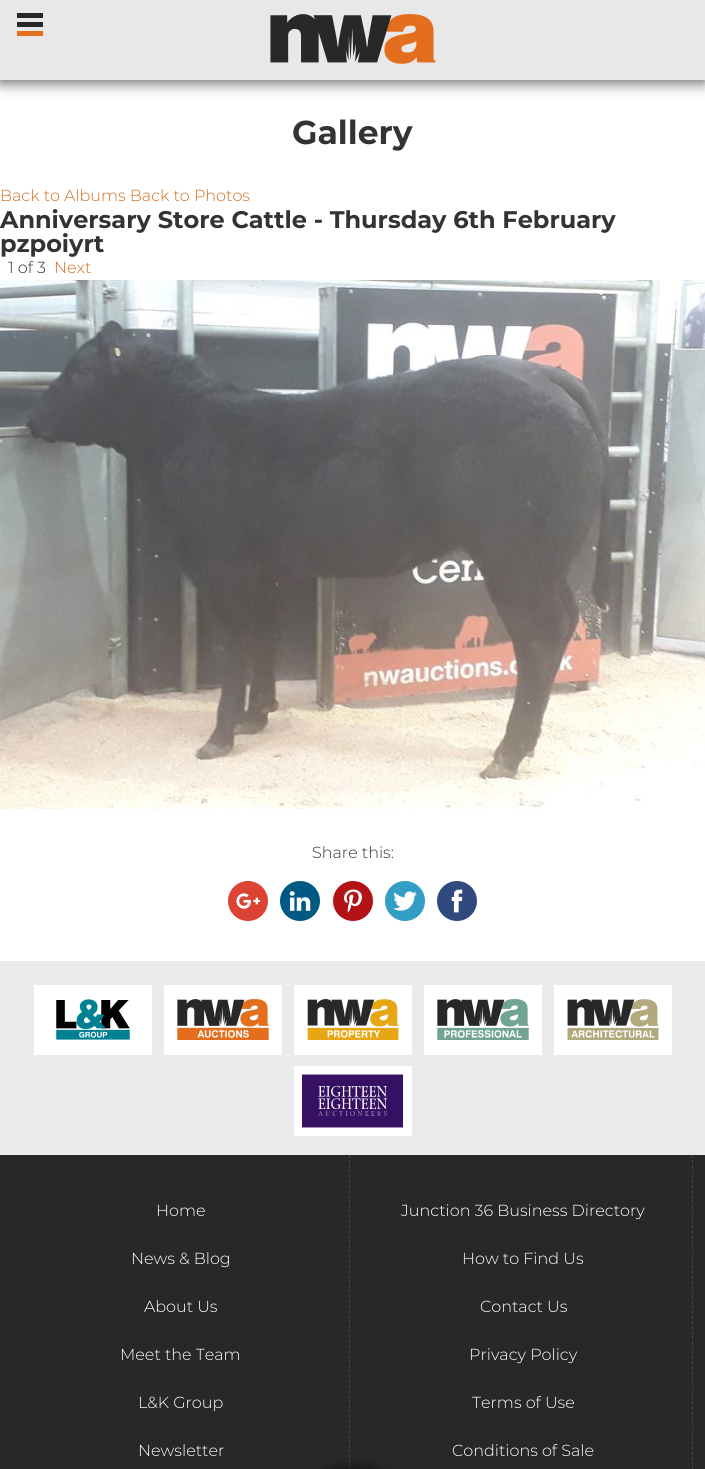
#include <cairo.h>
#include <math.h>
#include <stddef.h>


static void round_rect(cairo_t *cr, double x, double y, double w, double h, double r) {
    cairo_new_sub_path(cr);
    cairo_arc(cr, x + w - r, y + h - r, r, 0, M_PI / 2);
    cairo_arc(cr, x + r, y + h - r, r, M_PI / 2, M_PI);
    cairo_arc(cr, x + r, y + r, r, M_PI, 1.5 * M_PI);
    cairo_arc(cr, x + w - r, y + r, r, 1.5 * M_PI, 2 * M_PI);
    cairo_close_path(cr);
}

static void shadow(cairo_t *cr, double x, double y, double w, double h, double r, double blur, double alpha) {
    cairo_push_group_with_content(cr, CAIRO_CONTENT_ALPHA);
    cairo_set_operator(cr, CAIRO_OPERATOR_SOURCE);
    for (int i = 15; i >= -15 && fmin(w, h) + blur * i / 3 > 0; i -= 2) {
        double e = blur * i / 6;
        cairo_set_source_rgba(cr, 0, 0, 0, alpha * erfc((i - 1) / 8.5) / 2);
        round_rect(cr, x - e, y - e, w + 2 * e, h + 2 * e, fmax(0, fmin(r + e + blur * .6, fmin(w, h) / 2 + e)));
        cairo_fill(cr);
    }
    cairo_pattern_t *soft = cairo_pop_group(cr);
    cairo_mask(cr, soft);
    cairo_pattern_destroy(soft);
}

static void picture(cairo_t *cr, const char *path, double x, double y, double w, double h) {
    cairo_surface_t *image = cairo_image_surface_create_from_png(path);
    cairo_save(cr);
    cairo_set_source_surface(cr, image, x, y);
    cairo_rectangle(cr, x, y, w, h);
    cairo_fill(cr);
    cairo_restore(cr);
    cairo_surface_destroy(image);
}

int main(void) {
    cairo_surface_t *surface = cairo_image_surface_create(CAIRO_FORMAT_RGB24, 705, 1469);
    cairo_t *cr = cairo_create(surface);
    cairo_font_options_t *options = cairo_font_options_create();
    cairo_font_options_set_hint_metrics(options, CAIRO_HINT_METRICS_OFF);
    cairo_font_options_set_hint_style(options, CAIRO_HINT_STYLE_NONE);
    cairo_set_font_options(cr, options);
    cairo_set_miter_limit(cr, 4);
    cairo_set_source_rgb(cr, 1, 1, 1);
    cairo_paint(cr);
    cairo_set_source_rgb(cr, 0, 0, 0);
    shadow(cr, 0, 3, 705, 80, 0, 7, 0.6);
    cairo_set_source_rgb(cr, 0.91, 0.91, 0.91);
    cairo_rectangle(cr, 0, 0, 705, 80);
    cairo_fill(cr);
    cairo_set_source_rgb(cr, 0.157, 0.157, 0.161);
    cairo_rectangle(cr, 17, 22, 26, 5);
    cairo_fill(cr);
    cairo_rectangle(cr, 17, 13, 26, 5);
    cairo_fill(cr);
    cairo_set_source_rgb(cr, 0.89, 0.435, 0.118);
    cairo_rectangle(cr, 17, 31, 26, 5);
    cairo_fill(cr);
    picture(cr, "img1.png", 270, 14, 166, 50);
    cairo_select_font_face(cr, "Montserrat", CAIRO_FONT_SLANT_NORMAL, CAIRO_FONT_WEIGHT_BOLD);
    cairo_set_font_size(cr, 33);
    cairo_set_source_rgb(cr, 0.2, 0.2, 0.2);
    cairo_move_to(cr, 292, 144);
    cairo_show_text(cr, "Gallery");
    cairo_select_font_face(cr, "Montserrat Light", CAIRO_FONT_SLANT_NORMAL, CAIRO_FONT_WEIGHT_NORMAL);
    cairo_set_font_size(cr, 16);
    cairo_set_source_rgb(cr, 0.824, 0.424, 0.122);
    cairo_move_to(cr, 0, 201);
    cairo_show_text(cr, "Back to Albums Back to Photos");
    cairo_select_font_face(cr, "Montserrat", CAIRO_FONT_SLANT_NORMAL, CAIRO_FONT_WEIGHT_BOLD);
    cairo_set_font_size(cr, 24);
    cairo_set_source_rgb(cr, 0.2, 0.2, 0.2);
    cairo_move_to(cr, 0, 228);
    cairo_show_text(cr, "Anniversary Store Cattle - Thursday 6th February");
    cairo_move_to(cr, 0, 252);
    cairo_show_text(cr, "pzpoiyrt");
    cairo_select_font_face(cr, "Montserrat Light", CAIRO_FONT_SLANT_NORMAL, CAIRO_FONT_WEIGHT_NORMAL);
    cairo_set_font_size(cr, 16);
    cairo_move_to(cr, 8, 273);
    cairo_show_text(cr, "1 of 3");
    cairo_set_source_rgb(cr, 0.824, 0.424, 0.122);
    cairo_move_to(cr, 54, 273);
    cairo_show_text(cr, "Next");
    picture(cr, "img2.png", 0, 280, 705, 529);
    cairo_set_source_rgb(cr, 0.2, 0.2, 0.2);
    cairo_move_to(cr, 312, 858);
    cairo_show_text(cr, "Share this:");
    cairo_set_source_rgb(cr, 0.863, 0.263, 0.208);
    cairo_new_path(cr);
    cairo_arc(cr, 248, 901, 20, 0, 2 * M_PI);
    cairo_fill(cr);
    picture(cr, "img3.png", 236, 893, 25, 16);
    cairo_set_source_rgb(cr, 0, 0.349, 0.514);
    cairo_arc(cr, 300, 901, 20, 0, 2 * M_PI);
    cairo_fill(cr);
    picture(cr, "img4.png", 289, 891, 22, 20);
    cairo_set_source_rgb(cr, 0.702, 0.071, 0.09);
    cairo_arc(cr, 353, 901, 20, 0, 2 * M_PI);
    cairo_fill(cr);
    picture(cr, "img5.png", 344, 889, 18, 24);
    cairo_set_source_rgb(cr, 0.2, 0.616, 0.765);
    cairo_arc(cr, 405, 901, 20, 0, 2 * M_PI);
    cairo_fill(cr);
    picture(cr, "img6.png", 393, 891, 24, 20);
    cairo_set_source_rgb(cr, 0.192, 0.29, 0.494);
    cairo_arc(cr, 457, 901, 20, 0, 2 * M_PI);
    cairo_fill(cr);
    picture(cr, "img7.png", 451, 889, 12, 24);
    cairo_set_source_rgb(cr, 0.918, 0.918, 0.918);
    cairo_rectangle(cr, 0, 961, 705, 194);
    cairo_fill(cr);
    cairo_set_source_rgb(cr, 1, 1, 1);
    cairo_rectangle(cr, 34, 985, 118, 70);
    cairo_fill(cr);
    picture(cr, "img8.png", 56, 999, 74, 41);
    cairo_rectangle(cr, 164, 985, 118, 70);
    cairo_fill(cr);
    picture(cr, "img9.png", 177, 999, 92, 41);
    cairo_rectangle(cr, 294, 985, 118, 70);
    cairo_fill(cr);
    picture(cr, "img10.png", 307, 999, 92, 41);
    cairo_rectangle(cr, 424, 985, 118, 70);
    cairo_fill(cr);
    picture(cr, "img11.png", 437, 999, 92, 41);
    cairo_rectangle(cr, 554, 985, 118, 70);
    cairo_fill(cr);
    picture(cr, "img12.png", 567, 999, 92, 41);
    cairo_rectangle(cr, 294, 1066, 118, 70);
    cairo_fill(cr);
    picture(cr, "img13.png", 302, 1074, 101, 54);
    cairo_set_source_rgb(cr, 0.157, 0.157, 0.161);
    cairo_rectangle(cr, 0, 1155, 705, 314);
    cairo_fill(cr);
    cairo_new_path(cr);
    cairo_move_to(cr, 349.5, 1155);
    cairo_line_to(cr, 349.5, 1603);
    cairo_set_source_rgb(cr, 0.267, 0.267, 0.267);
    cairo_set_line_width(cr, 1);
    cairo_set_dash(cr, (double[]){3, 2}, 2, 0);
    cairo_stroke(cr);
    cairo_set_source_rgb(cr, 1, 1, 1);
    cairo_move_to(cr, 156, 1216);
    cairo_show_text(cr, "Home");
    cairo_move_to(cr, 131, 1264);
    cairo_show_text(cr, "News & Blog");
    cairo_move_to(cr, 144, 1312);
    cairo_show_text(cr, "About Us");
    cairo_move_to(cr, 120, 1360);
    cairo_show_text(cr, "Meet the Team");
    cairo_move_to(cr, 138, 1408);
    cairo_show_text(cr, "L&K Group");
    cairo_move_to(cr, 138, 1456);
    cairo_show_text(cr, "Newsletter");
    cairo_new_path(cr);
    cairo_move_to(cr, 692.5, 1155);
    cairo_line_to(cr, 692.5, 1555);
    cairo_set_source_rgb(cr, 0.267, 0.267, 0.267);
    cairo_set_dash(cr, (double[]){3, 2.03}, 2, 0);
    cairo_stroke(cr);
    cairo_set_source_rgb(cr, 1, 1, 1);
    cairo_move_to(cr, 401, 1216);
    cairo_show_text(cr, "Junction 36 Business Directory");
    cairo_move_to(cr, 462, 1264);
    cairo_show_text(cr, "How to Find Us");
    cairo_move_to(cr, 480, 1312);
    cairo_show_text(cr, "Contact Us");
    cairo_move_to(cr, 469, 1360);
    cairo_show_text(cr, "Privacy Policy");
    cairo_move_to(cr, 472, 1408);
    cairo_show_text(cr, "Terms of Use");
    cairo_move_to(cr, 452, 1456);
    cairo_show_text(cr, "Conditions of Sale");
    cairo_set_source_rgb(cr, 0, 0, 0);
    shadow(cr, 313, 1469, 80, 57, 40, 5.5, 0.65);
    cairo_surface_write_to_png(surface, "page.png");
    cairo_font_options_destroy(options);
    cairo_destroy(cr);
    cairo_surface_destroy(surface);
    return 0;
}
